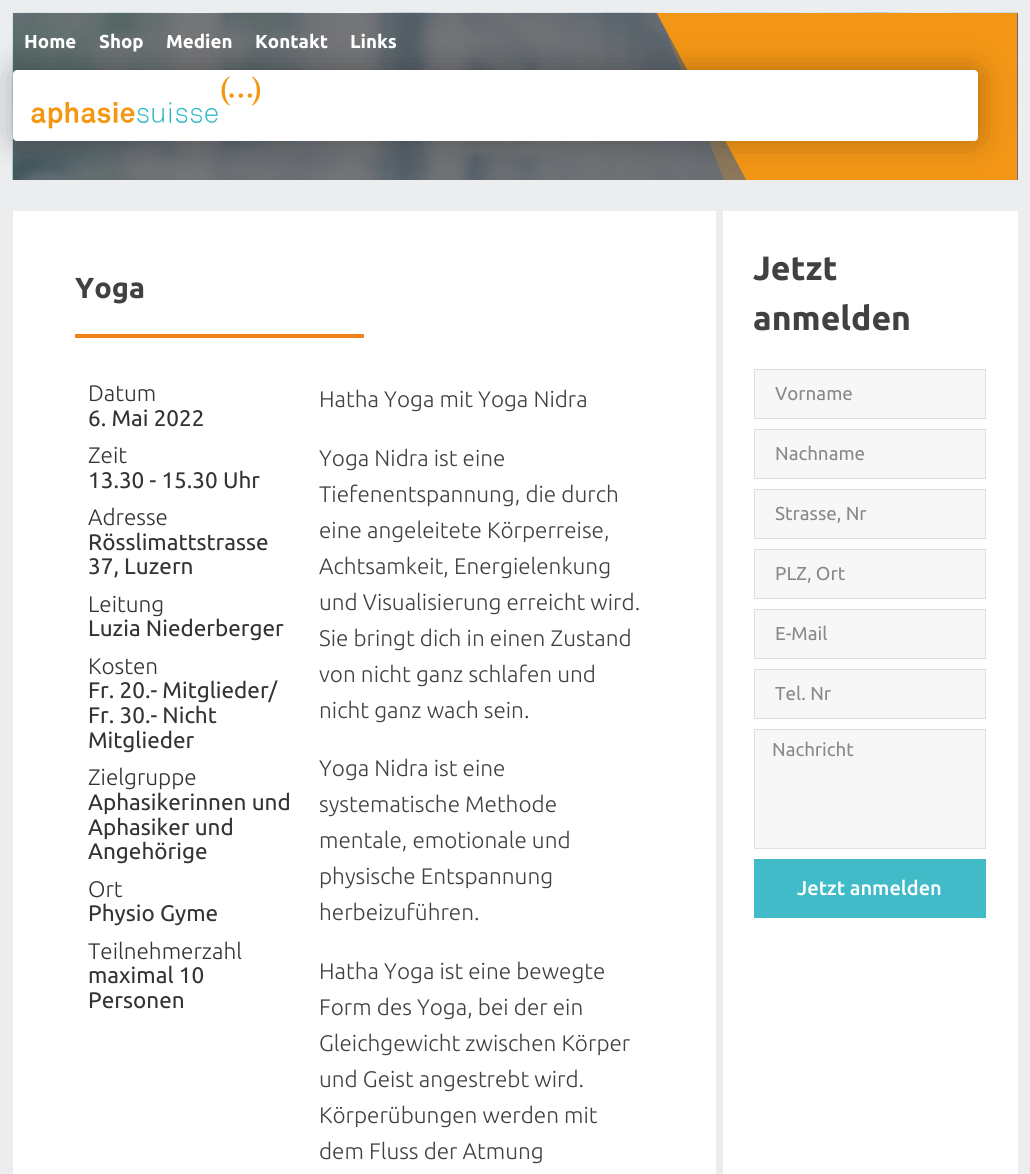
#include <cairo.h>
#include <math.h>
#include <stddef.h>


static void round_rect(cairo_t *cr, double x, double y, double w, double h, double r) {
    cairo_new_sub_path(cr);
    cairo_arc(cr, x + w - r, y + h - r, r, 0, M_PI / 2);
    cairo_arc(cr, x + r, y + h - r, r, M_PI / 2, M_PI);
    cairo_arc(cr, x + r, y + r, r, M_PI, 1.5 * M_PI);
    cairo_arc(cr, x + w - r, y + r, r, 1.5 * M_PI, 2 * M_PI);
    cairo_close_path(cr);
}

static void shadow(cairo_t *cr, double x, double y, double w, double h, double r, double blur, double alpha) {
    cairo_push_group_with_content(cr, CAIRO_CONTENT_ALPHA);
    cairo_set_operator(cr, CAIRO_OPERATOR_SOURCE);
    for (int i = 15; i >= -15 && fmin(w, h) + blur * i / 3 > 0; i -= 2) {
        double e = blur * i / 6;
        cairo_set_source_rgba(cr, 0, 0, 0, alpha * erfc((i - 1) / 8.5) / 2);
        round_rect(cr, x - e, y - e, w + 2 * e, h + 2 * e, fmax(0, fmin(r + e + blur * .6, fmin(w, h) / 2 + e)));
        cairo_fill(cr);
    }
    cairo_pattern_t *soft = cairo_pop_group(cr);
    cairo_mask(cr, soft);
    cairo_pattern_destroy(soft);
}

static void picture(cairo_t *cr, const char *path, double x, double y, double w, double h) {
    cairo_surface_t *image = cairo_image_surface_create_from_png(path);
    cairo_save(cr);
    cairo_set_source_surface(cr, image, x, y);
    cairo_rectangle(cr, x, y, w, h);
    cairo_fill(cr);
    cairo_restore(cr);
    cairo_surface_destroy(image);
}

int main(void) {
    cairo_surface_t *surface = cairo_image_surface_create(CAIRO_FORMAT_RGB24, 1030, 1174);
    cairo_t *cr = cairo_create(surface);
    cairo_font_options_t *options = cairo_font_options_create();
    cairo_font_options_set_hint_metrics(options, CAIRO_HINT_METRICS_OFF);
    cairo_font_options_set_hint_style(options, CAIRO_HINT_STYLE_NONE);
    cairo_set_font_options(cr, options);
    cairo_set_miter_limit(cr, 4);
    cairo_set_source_rgb(cr, 0.918, 0.929, 0.937);
    cairo_paint(cr);
    cairo_set_source_rgb(cr, 0.443, 0.443, 0.447);
    cairo_rectangle(cr, 1017, 13, 1, 167);
    cairo_fill(cr);
    picture(cr, "img1.png", 12, 12, 1006, 168);
    cairo_save(cr);
    cairo_rectangle(cr, 13, 13, 1005, 167);
    cairo_clip(cr);
    cairo_set_source_rgba(cr, 0.953, 0.588, 0.086, 0.25);
    cairo_new_path(cr);
    cairo_move_to(cr, 748, 241);
    cairo_line_to(cr, 1017, 241);
    cairo_line_to(cr, 1017, -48);
    cairo_line_to(cr, 635, -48);
    cairo_close_path(cr);
    cairo_fill(cr);
    cairo_set_source_rgb(cr, 0.953, 0.588, 0.086);
    cairo_new_path(cr);
    cairo_move_to(cr, 779, 241);
    cairo_line_to(cr, 1017, 241);
    cairo_line_to(cr, 1017, -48);
    cairo_line_to(cr, 624, -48);
    cairo_close_path(cr);
    cairo_fill(cr);
    cairo_restore(cr);
    cairo_set_source_rgb(cr, 0, 0, 0);
    shadow(cr, 13, 70, 965, 71, 4, 15.5, 0.28);
    cairo_set_source_rgb(cr, 1, 1, 1);
    round_rect(cr, 13, 70, 965, 71, 4);
    cairo_fill(cr);
    picture(cr, "img2.png", 31, 76, 229, 53);
    cairo_select_font_face(cr, "Ubuntu", CAIRO_FONT_SLANT_NORMAL, CAIRO_FONT_WEIGHT_BOLD);
    cairo_set_font_size(cr, 18.75);
    cairo_move_to(cr, 24, 48);
    cairo_show_text(cr, "Home");
    cairo_move_to(cr, 99, 48);
    cairo_show_text(cr, "Shop");
    cairo_move_to(cr, 166, 48);
    cairo_show_text(cr, "Medien");
    cairo_move_to(cr, 255, 48);
    cairo_show_text(cr, "Kontakt");
    cairo_move_to(cr, 350, 48);
    cairo_show_text(cr, "Links");
    cairo_rectangle(cr, 13, 211, 703, 963);
    cairo_fill(cr);
    cairo_set_font_size(cr, 29);
    cairo_set_source_rgb(cr, 0.255, 0.255, 0.255);
    cairo_move_to(cr, 75, 298);
    cairo_show_text(cr, "Yoga");
    cairo_set_source_rgb(cr, 0.941, 0.51, 0.098);
    cairo_rectangle(cr, 75, 334, 289, 4);
    cairo_fill(cr);
    cairo_select_font_face(cr, "Ubuntu Light", CAIRO_FONT_SLANT_NORMAL, CAIRO_FONT_WEIGHT_NORMAL);
    cairo_set_font_size(cr, 22.5);
    cairo_set_source_rgb(cr, 0.2, 0.2, 0.2);
    cairo_move_to(cr, 88, 401);
    cairo_show_text(cr, "Datum");
    cairo_select_font_face(cr, "Ubuntu", CAIRO_FONT_SLANT_NORMAL, CAIRO_FONT_WEIGHT_NORMAL);
    cairo_move_to(cr, 88, 426);
    cairo_show_text(cr, "6. Mai 2022");
    cairo_select_font_face(cr, "Ubuntu Light", CAIRO_FONT_SLANT_NORMAL, CAIRO_FONT_WEIGHT_NORMAL);
    cairo_move_to(cr, 88, 463);
    cairo_show_text(cr, "Zeit");
    cairo_select_font_face(cr, "Ubuntu", CAIRO_FONT_SLANT_NORMAL, CAIRO_FONT_WEIGHT_NORMAL);
    cairo_move_to(cr, 88, 488);
    cairo_show_text(cr, "13.30 - 15.30 Uhr");
    cairo_select_font_face(cr, "Ubuntu Light", CAIRO_FONT_SLANT_NORMAL, CAIRO_FONT_WEIGHT_NORMAL);
    cairo_move_to(cr, 88, 525);
    cairo_show_text(cr, "Adresse");
    cairo_select_font_face(cr, "Ubuntu", CAIRO_FONT_SLANT_NORMAL, CAIRO_FONT_WEIGHT_NORMAL);
    cairo_move_to(cr, 88, 550);
    cairo_show_text(cr, "Rösslimattstrasse");
    cairo_move_to(cr, 88, 574);
    cairo_show_text(cr, "37, Luzern");
    cairo_select_font_face(cr, "Ubuntu Light", CAIRO_FONT_SLANT_NORMAL, CAIRO_FONT_WEIGHT_NORMAL);
    cairo_move_to(cr, 88, 612);
    cairo_show_text(cr, "Leitung");
    cairo_select_font_face(cr, "Ubuntu", CAIRO_FONT_SLANT_NORMAL, CAIRO_FONT_WEIGHT_NORMAL);
    cairo_move_to(cr, 88, 636);
    cairo_show_text(cr, "Luzia Niederberger");
    cairo_select_font_face(cr, "Ubuntu Light", CAIRO_FONT_SLANT_NORMAL, CAIRO_FONT_WEIGHT_NORMAL);
    cairo_move_to(cr, 88, 674);
    cairo_show_text(cr, "Kosten");
    cairo_select_font_face(cr, "Ubuntu", CAIRO_FONT_SLANT_NORMAL, CAIRO_FONT_WEIGHT_NORMAL);
    cairo_move_to(cr, 88, 698);
    cairo_show_text(cr, "Fr. 20.- Mitglieder/");
    cairo_move_to(cr, 88, 723);
    cairo_show_text(cr, "Fr. 30.- Nicht");
    cairo_move_to(cr, 88, 748);
    cairo_show_text(cr, "Mitglieder");
    cairo_select_font_face(cr, "Ubuntu Light", CAIRO_FONT_SLANT_NORMAL, CAIRO_FONT_WEIGHT_NORMAL);
    cairo_move_to(cr, 88, 785);
    cairo_show_text(cr, "Zielgruppe");
    cairo_select_font_face(cr, "Ubuntu", CAIRO_FONT_SLANT_NORMAL, CAIRO_FONT_WEIGHT_NORMAL);
    cairo_move_to(cr, 88, 810);
    cairo_show_text(cr, "Aphasikerinnen und");
    cairo_move_to(cr, 88, 835);
    cairo_show_text(cr, "Aphasiker und");
    cairo_move_to(cr, 88, 859);
    cairo_show_text(cr, "Angehörige");
    cairo_select_font_face(cr, "Ubuntu Light", CAIRO_FONT_SLANT_NORMAL, CAIRO_FONT_WEIGHT_NORMAL);
    cairo_move_to(cr, 88, 897);
    cairo_show_text(cr, "Ort");
    cairo_select_font_face(cr, "Ubuntu", CAIRO_FONT_SLANT_NORMAL, CAIRO_FONT_WEIGHT_NORMAL);
    cairo_move_to(cr, 88, 921);
    cairo_show_text(cr, "Physio Gyme");
    cairo_select_font_face(cr, "Ubuntu Light", CAIRO_FONT_SLANT_NORMAL, CAIRO_FONT_WEIGHT_NORMAL);
    cairo_move_to(cr, 88, 959);
    cairo_show_text(cr, "Teilnehmerzahl");
    cairo_select_font_face(cr, "Ubuntu", CAIRO_FONT_SLANT_NORMAL, CAIRO_FONT_WEIGHT_NORMAL);
    cairo_move_to(cr, 88, 983);
    cairo_show_text(cr, "maximal 10");
    cairo_move_to(cr, 88, 1008);
    cairo_show_text(cr, "Personen");
    cairo_select_font_face(cr, "Ubuntu Light", CAIRO_FONT_SLANT_NORMAL, CAIRO_FONT_WEIGHT_NORMAL);
    cairo_set_source_rgb(cr, 0.255, 0.255, 0.255);
    cairo_move_to(cr, 319, 407);
    cairo_show_text(cr, "Hatha Yoga mit Yoga Nidra");
    cairo_move_to(cr, 319, 466);
    cairo_show_text(cr, "Yoga Nidra ist eine");
    cairo_move_to(cr, 319, 502);
    cairo_show_text(cr, "Tiefenentspannung, die durch");
    cairo_move_to(cr, 319, 538);
    cairo_show_text(cr, "eine angeleitete Körperreise,");
    cairo_move_to(cr, 319, 574);
    cairo_show_text(cr, "Achtsamkeit, Energielenkung");
    cairo_move_to(cr, 319, 610);
    cairo_show_text(cr, "und Visualisierung erreicht wird.");
    cairo_move_to(cr, 319, 646);
    cairo_show_text(cr, "Sie bringt dich in einen Zustand");
    cairo_move_to(cr, 319, 682);
    cairo_show_text(cr, "von nicht ganz schlafen und");
    cairo_move_to(cr, 319, 718);
    cairo_show_text(cr, "nicht ganz wach sein.");
    cairo_move_to(cr, 319, 776);
    cairo_show_text(cr, "Yoga Nidra ist eine");
    cairo_move_to(cr, 319, 812);
    cairo_show_text(cr, "systematische Methode");
    cairo_move_to(cr, 319, 848);
    cairo_show_text(cr, "mentale, emotionale und");
    cairo_move_to(cr, 319, 884);
    cairo_show_text(cr, "physische Entspannung");
    cairo_move_to(cr, 319, 920);
    cairo_show_text(cr, "herbeizuführen.");
    cairo_move_to(cr, 319, 979);
    cairo_show_text(cr, "Hatha Yoga ist eine bewegte");
    cairo_move_to(cr, 319, 1015);
    cairo_show_text(cr, "Form des Yoga, bei der ein");
    cairo_move_to(cr, 319, 1051);
    cairo_show_text(cr, "Gleichgewicht zwischen Körper");
    cairo_move_to(cr, 319, 1087);
    cairo_show_text(cr, "und Geist angestrebt wird.");
    cairo_move_to(cr, 319, 1123);
    cairo_show_text(cr, "Körperübungen werden mit");
    cairo_move_to(cr, 319, 1159);
    cairo_show_text(cr, "dem Fluss der Atmung");
    cairo_set_source_rgb(cr, 1, 1, 1);
    cairo_rectangle(cr, 723, 211, 295, 963);
    cairo_fill(cr);
    cairo_select_font_face(cr, "Ubuntu", CAIRO_FONT_SLANT_NORMAL, CAIRO_FONT_WEIGHT_BOLD);
    cairo_set_font_size(cr, 33.75);
    cairo_set_source_rgb(cr, 0.255, 0.255, 0.255);
    cairo_move_to(cr, 753, 280);
    cairo_show_text(cr, "Jetzt");
    cairo_move_to(cr, 753, 330);
    cairo_show_text(cr, "anmelden");
    cairo_set_source_rgb(cr, 0.965, 0.965, 0.965);
    cairo_rectangle(cr, 754.5, 369.5, 231, 49);
    cairo_fill_preserve(cr);
    cairo_set_source_rgb(cr, 0.871, 0.871, 0.871);
    cairo_set_line_width(cr, 1);
    cairo_stroke(cr);
    cairo_select_font_face(cr, "Ubuntu", CAIRO_FONT_SLANT_NORMAL, CAIRO_FONT_WEIGHT_NORMAL);
    cairo_set_font_size(cr, 18.75);
    cairo_set_source_rgb(cr, 0.537, 0.537, 0.537);
    cairo_move_to(cr, 775, 400);
    cairo_show_text(cr, "Vorname");
    cairo_set_source_rgb(cr, 0.965, 0.965, 0.965);
    cairo_rectangle(cr, 754.5, 429.5, 231, 49);
    cairo_fill_preserve(cr);
    cairo_set_source_rgb(cr, 0.871, 0.871, 0.871);
    cairo_stroke(cr);
    cairo_set_source_rgb(cr, 0.537, 0.537, 0.537);
    cairo_move_to(cr, 775, 460);
    cairo_show_text(cr, "Nachname");
    cairo_set_source_rgb(cr, 0.965, 0.965, 0.965);
    cairo_rectangle(cr, 754.5, 489.5, 231, 49);
    cairo_fill_preserve(cr);
    cairo_set_source_rgb(cr, 0.871, 0.871, 0.871);
    cairo_stroke(cr);
    cairo_set_source_rgb(cr, 0.537, 0.537, 0.537);
    cairo_move_to(cr, 775, 520);
    cairo_show_text(cr, "Strasse, Nr");
    cairo_set_source_rgb(cr, 0.965, 0.965, 0.965);
    cairo_rectangle(cr, 754.5, 549.5, 231, 49);
    cairo_fill_preserve(cr);
    cairo_set_source_rgb(cr, 0.871, 0.871, 0.871);
    cairo_stroke(cr);
    cairo_set_source_rgb(cr, 0.537, 0.537, 0.537);
    cairo_move_to(cr, 775, 580);
    cairo_show_text(cr, "PLZ, Ort");
    cairo_set_source_rgb(cr, 0.965, 0.965, 0.965);
    cairo_rectangle(cr, 754.5, 609.5, 231, 49);
    cairo_fill_preserve(cr);
    cairo_set_source_rgb(cr, 0.871, 0.871, 0.871);
    cairo_stroke(cr);
    cairo_set_source_rgb(cr, 0.537, 0.537, 0.537);
    cairo_move_to(cr, 775, 640);
    cairo_show_text(cr, "E-Mail");
    cairo_set_source_rgb(cr, 0.965, 0.965, 0.965);
    cairo_rectangle(cr, 754.5, 669.5, 231, 49);
    cairo_fill_preserve(cr);
    cairo_set_source_rgb(cr, 0.871, 0.871, 0.871);
    cairo_stroke(cr);
    cairo_set_source_rgb(cr, 0.537, 0.537, 0.537);
    cairo_move_to(cr, 775, 700);
    cairo_show_text(cr, "Tel. Nr");
    cairo_set_source_rgb(cr, 0.965, 0.965, 0.965);
    cairo_rectangle(cr, 754.5, 729.5, 231, 119);
    cairo_fill_preserve(cr);
    cairo_set_source_rgb(cr, 0.871, 0.871, 0.871);
    cairo_stroke(cr);
    cairo_set_source_rgb(cr, 0.537, 0.537, 0.537);
    cairo_move_to(cr, 772, 756);
    cairo_show_text(cr, "Nachricht");
    cairo_set_source_rgb(cr, 0.259, 0.733, 0.788);
    cairo_rectangle(cr, 754, 859, 232, 59);
    cairo_fill(cr);
    cairo_select_font_face(cr, "Ubuntu Medium", CAIRO_FONT_SLANT_NORMAL, CAIRO_FONT_WEIGHT_NORMAL);
    cairo_set_font_size(cr, 20);
    cairo_set_source_rgb(cr, 1, 1, 1);
    cairo_move_to(cr, 797, 895);
    cairo_show_text(cr, "Jetzt anmelden");
    cairo_surface_write_to_png(surface, "page.png");
    cairo_font_options_destroy(options);
    cairo_destroy(cr);
    cairo_surface_destroy(surface);
    return 0;
}
